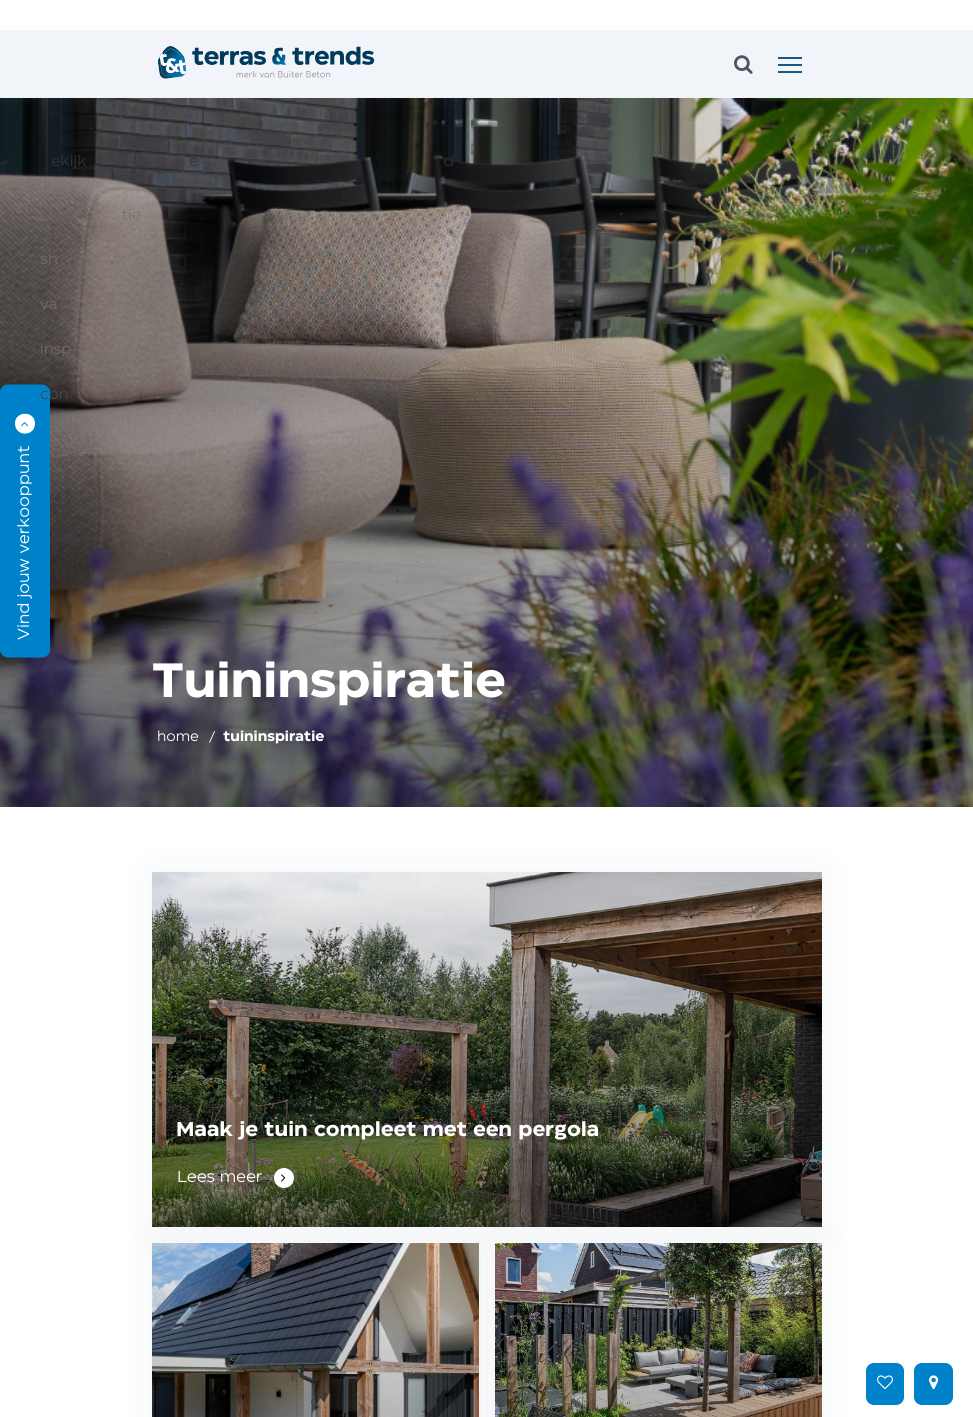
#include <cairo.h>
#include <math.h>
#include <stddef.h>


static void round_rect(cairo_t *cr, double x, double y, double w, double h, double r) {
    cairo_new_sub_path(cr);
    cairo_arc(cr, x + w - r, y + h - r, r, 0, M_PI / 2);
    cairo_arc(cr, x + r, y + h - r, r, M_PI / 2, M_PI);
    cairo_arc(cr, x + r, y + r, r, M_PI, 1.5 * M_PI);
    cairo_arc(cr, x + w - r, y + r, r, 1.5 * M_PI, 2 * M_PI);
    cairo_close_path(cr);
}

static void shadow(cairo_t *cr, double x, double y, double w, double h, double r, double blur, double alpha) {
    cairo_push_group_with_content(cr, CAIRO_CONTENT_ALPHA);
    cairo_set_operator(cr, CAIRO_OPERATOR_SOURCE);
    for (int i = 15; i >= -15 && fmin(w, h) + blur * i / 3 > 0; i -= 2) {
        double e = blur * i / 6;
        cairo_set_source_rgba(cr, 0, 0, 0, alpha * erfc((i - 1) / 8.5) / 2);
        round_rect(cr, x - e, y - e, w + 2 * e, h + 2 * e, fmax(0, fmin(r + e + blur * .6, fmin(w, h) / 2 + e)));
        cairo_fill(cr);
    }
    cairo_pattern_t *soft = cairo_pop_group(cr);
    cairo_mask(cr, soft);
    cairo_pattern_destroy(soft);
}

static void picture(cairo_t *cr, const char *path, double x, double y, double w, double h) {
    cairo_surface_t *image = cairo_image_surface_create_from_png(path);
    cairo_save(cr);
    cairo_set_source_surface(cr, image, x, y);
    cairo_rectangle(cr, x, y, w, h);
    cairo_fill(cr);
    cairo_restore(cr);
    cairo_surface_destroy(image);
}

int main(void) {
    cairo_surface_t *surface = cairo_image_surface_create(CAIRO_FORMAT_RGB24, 973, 1417);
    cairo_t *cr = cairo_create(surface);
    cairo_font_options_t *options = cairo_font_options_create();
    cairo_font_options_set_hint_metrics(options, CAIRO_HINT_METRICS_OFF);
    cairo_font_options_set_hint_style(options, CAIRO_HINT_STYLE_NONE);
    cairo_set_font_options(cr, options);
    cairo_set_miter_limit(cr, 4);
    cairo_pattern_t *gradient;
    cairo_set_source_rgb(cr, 1, 1, 1);
    cairo_paint(cr);
    picture(cr, "img3.png", 0, 98, 973, 709);
    cairo_set_source_rgb(cr, 0.51, 0.51, 0.525);
    shadow(cr, 0, 1, 973, 98, 0, 5, 0.1);
    cairo_set_source_rgb(cr, 0.945, 0.957, 0.973);
    cairo_rectangle(cr, 0, 30, 973, 68);
    cairo_fill(cr);
    cairo_set_source_rgb(cr, 1, 1, 1);
    cairo_rectangle(cr, 0, 0, 973, 30);
    cairo_fill(cr);
    picture(cr, "img1.png", 158, 46, 217, 33);
    picture(cr, "img2.png", 734, 55, 19, 19);
    cairo_set_source_rgb(cr, 0.094, 0.353, 0.49);
    cairo_rectangle(cr, 778, 57, 24, 2);
    cairo_fill(cr);
    cairo_rectangle(cr, 778, 64, 24, 2);
    cairo_fill(cr);
    cairo_rectangle(cr, 778, 71, 24, 2);
    cairo_fill(cr);
    cairo_select_font_face(cr, "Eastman", CAIRO_FONT_SLANT_NORMAL, CAIRO_FONT_WEIGHT_NORMAL);
    cairo_set_font_size(cr, 15);
    cairo_set_source_rgb(cr, 0.196, 0.2, 0.216);
    cairo_move_to(cr, 51, 166);
    cairo_show_text(cr, "ekijk");
    cairo_move_to(cr, 189, 166);
    cairo_show_text(cr, "e");
    cairo_set_font_size(cr, 16);
    cairo_set_source_rgb(cr, 0.165, 0.18, 0.173);
    cairo_move_to(cr, 443, 166);
    cairo_show_text(cr, "d");
    cairo_set_font_size(cr, 15);
    cairo_set_source_rgb(cr, 0.478, 0.443, 0.427);
    cairo_move_to(cr, 121, 220);
    cairo_show_text(cr, "tie");
    cairo_set_source_rgb(cr, 0.447, 0.412, 0.396);
    cairo_move_to(cr, 40, 264);
    cairo_show_text(cr, "sh");
    cairo_move_to(cr, 40, 309);
    cairo_show_text(cr, "va");
    cairo_move_to(cr, 40, 354);
    cairo_show_text(cr, "insp");
    cairo_set_source_rgb(cr, 0, 0.51, 0.792);
    cairo_new_path(cr);
    cairo_move_to(cr, 0, 649);
    cairo_line_to(cr, 0, 393);
    cairo_curve_to(cr, 0, 388, 4, 385, 8, 385);
    cairo_line_to(cr, 42, 385);
    cairo_curve_to(cr, 46, 385, 50, 388, 50, 393);
    cairo_line_to(cr, 50, 649);
    cairo_curve_to(cr, 50, 654, 46, 657, 42, 657);
    cairo_line_to(cr, 8, 657);
    cairo_curve_to(cr, 4, 657, 0, 654, 0, 649);
    cairo_close_path(cr);
    cairo_fill(cr);
    cairo_new_path(cr);
    cairo_move_to(cr, 0.5, 649.5);
    cairo_line_to(cr, 0.5, 392.5);
    cairo_curve_to(cr, 0.5, 388.5, 4, 385, 8, 385);
    cairo_line_to(cr, 42, 385);
    cairo_curve_to(cr, 46, 385, 49.5, 388.5, 49.5, 392.5);
    cairo_line_to(cr, 49.5, 649.5);
    cairo_curve_to(cr, 49.5, 653.5, 46, 657, 42, 657);
    cairo_line_to(cr, 8, 657);
    cairo_curve_to(cr, 4, 657, 0.5, 653.5, 0.5, 649.5);
    cairo_close_path(cr);
    cairo_set_line_width(cr, 1);
    cairo_stroke(cr);
    cairo_set_source_rgb(cr, 0.247, 0.286, 0.314);
    cairo_move_to(cr, 40, 399);
    cairo_show_text(cr, "con");
    cairo_set_source_rgb(cr, 1, 1, 1);
    cairo_new_path(cr);
    cairo_move_to(cr, 15, 423.5);
    cairo_curve_to(cr, 15, 410.5, 35, 410.5, 35, 423.5);
    cairo_curve_to(cr, 35, 437, 15, 437, 15, 423.5);
    cairo_close_path(cr);
    cairo_fill(cr);
    picture(cr, "img4.png", 21, 422, 8, 5);
    cairo_set_font_size(cr, 16);
    cairo_save(cr);
    cairo_translate(cr, 29, 640);
    cairo_rotate(cr, -90 * M_PI / 180);
    cairo_move_to(cr, 0, 0);
    cairo_show_text(cr, "Vind jouw verkooppunt");
    cairo_restore(cr);
    cairo_select_font_face(cr, "Eastman", CAIRO_FONT_SLANT_NORMAL, CAIRO_FONT_WEIGHT_BOLD);
    cairo_set_font_size(cr, 48);
    cairo_move_to(cr, 152, 697);
    cairo_show_text(cr, "Tuininspiratie");
    cairo_set_source_rgb(cr, 0.549, 0.596, 0.643);
    shadow(cr, 152, 872, 670, 355, 0, 17.5, 0.12);
    picture(cr, "img5.png", 152, 872, 670, 355);
    shadow(cr, 152, 1243, 327, 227, 0, 17.5, 0.12);
    picture(cr, "img7.png", 152, 1243, 327, 174);
    shadow(cr, 495, 1243, 327, 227, 0, 17.5, 0.12);
    gradient = cairo_pattern_create_linear(487, 872, 487, 1227);
    cairo_pattern_add_color_stop_rgba(gradient, 0, 0, 0, 0, 0.05);
    cairo_pattern_add_color_stop_rgba(gradient, 1, 0, 0, 0, 0.5);
    cairo_set_source(cr, gradient);
    cairo_pattern_destroy(gradient);
    cairo_rectangle(cr, 152, 872, 670, 355);
    cairo_fill(cr);
    cairo_set_font_size(cr, 20);
    cairo_set_source_rgb(cr, 1, 1, 1);
    cairo_move_to(cr, 176, 1136);
    cairo_show_text(cr, "Maak je tuin compleet met een pergola");
    cairo_select_font_face(cr, "Eastman", CAIRO_FONT_SLANT_NORMAL, CAIRO_FONT_WEIGHT_NORMAL);
    cairo_set_font_size(cr, 16);
    cairo_move_to(cr, 177, 1182);
    cairo_show_text(cr, "Lees meer");
    cairo_new_path(cr);
    cairo_arc(cr, 284, 1178, 10, 0, 2 * M_PI);
    cairo_fill(cr);
    picture(cr, "img6.png", 281, 1174, 5, 8);
    gradient = cairo_pattern_create_linear(316, 1243, 316, 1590);
    cairo_pattern_add_color_stop_rgba(gradient, 0, 0, 0, 0, 0.05);
    cairo_pattern_add_color_stop_rgba(gradient, 1, 0, 0, 0, 0.5);
    cairo_set_source(cr, gradient);
    cairo_pattern_destroy(gradient);
    cairo_rectangle(cr, 152, 1243, 327, 174);
    cairo_fill(cr);
    picture(cr, "img8.png", 495, 1243, 327, 174);
    cairo_set_font_size(cr, 14);
    cairo_set_source_rgb(cr, 1, 1, 1);
    cairo_move_to(cr, 157, 741);
    cairo_show_text(cr, "home");
    cairo_move_to(cr, 208, 741);
    cairo_show_text(cr, "/");
    cairo_select_font_face(cr, "Eastman", CAIRO_FONT_SLANT_NORMAL, CAIRO_FONT_WEIGHT_BOLD);
    cairo_move_to(cr, 223, 741);
    cairo_show_text(cr, "tuininspiratie");
    cairo_set_source_rgb(cr, 0, 0.51, 0.792);
    round_rect(cr, 866.5, 1363.5, 37, 41, 7.5);
    cairo_fill_preserve(cr);
    cairo_stroke(cr);
    picture(cr, "img9.png", 877, 1375, 16, 15);
    round_rect(cr, 914.5, 1363.5, 38, 41, 7.5);
    cairo_fill_preserve(cr);
    cairo_stroke(cr);
    picture(cr, "img10.png", 929, 1375, 10, 15);
    cairo_surface_write_to_png(surface, "page.png");
    cairo_font_options_destroy(options);
    cairo_destroy(cr);
    cairo_surface_destroy(surface);
    return 0;
}
